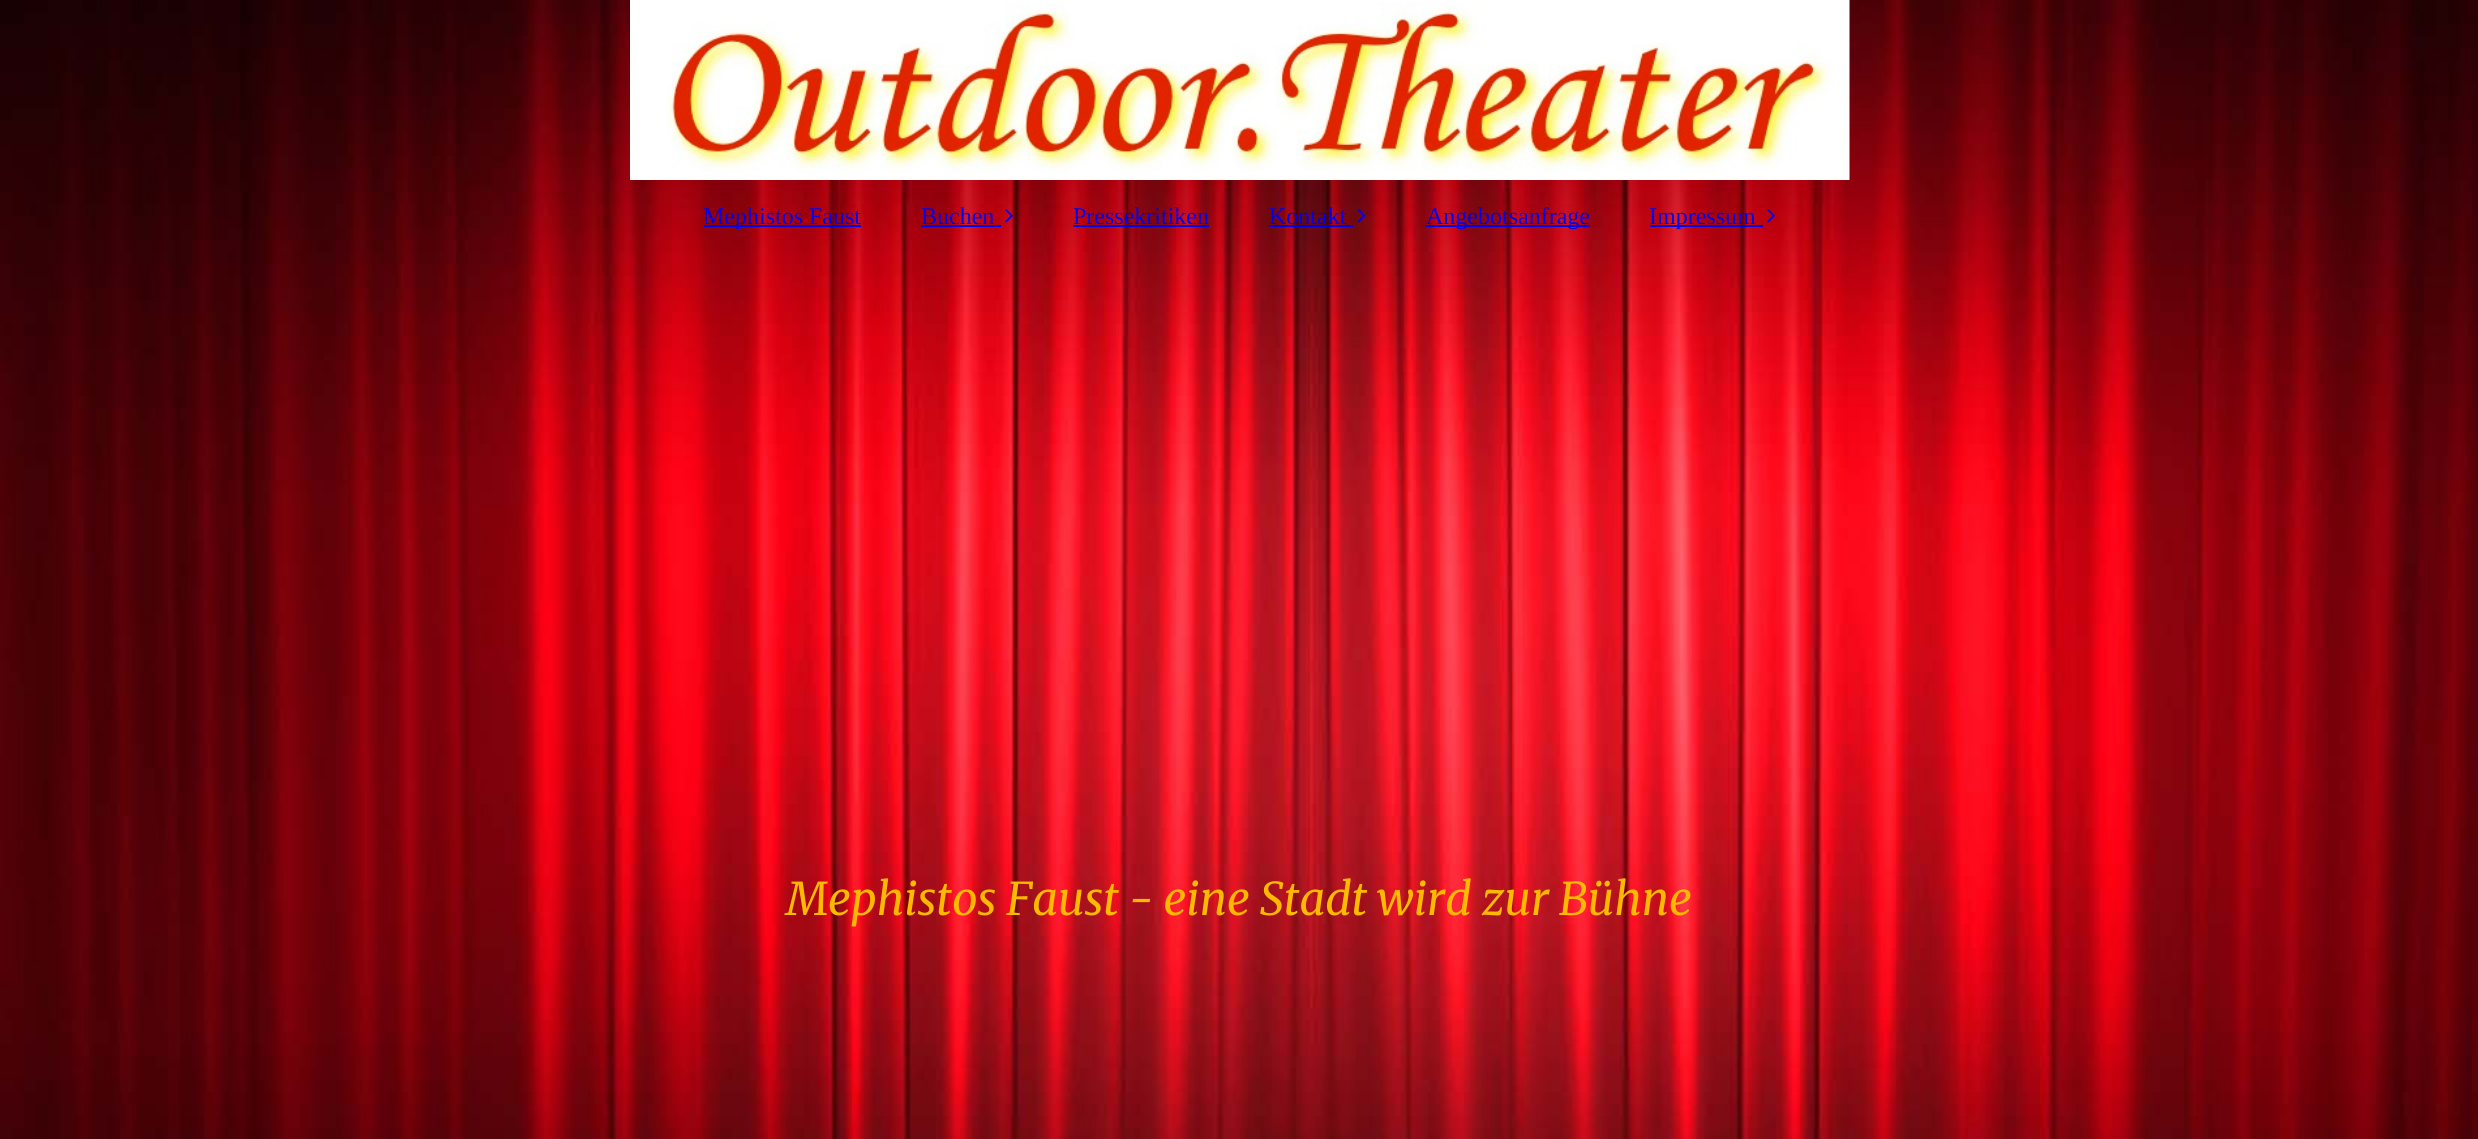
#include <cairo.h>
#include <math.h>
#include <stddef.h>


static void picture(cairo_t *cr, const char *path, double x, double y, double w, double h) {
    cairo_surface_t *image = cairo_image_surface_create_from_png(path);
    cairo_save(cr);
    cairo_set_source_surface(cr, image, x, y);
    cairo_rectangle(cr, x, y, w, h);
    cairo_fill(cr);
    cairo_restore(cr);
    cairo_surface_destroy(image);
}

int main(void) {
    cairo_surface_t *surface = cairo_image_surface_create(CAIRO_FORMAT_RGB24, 2478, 1139);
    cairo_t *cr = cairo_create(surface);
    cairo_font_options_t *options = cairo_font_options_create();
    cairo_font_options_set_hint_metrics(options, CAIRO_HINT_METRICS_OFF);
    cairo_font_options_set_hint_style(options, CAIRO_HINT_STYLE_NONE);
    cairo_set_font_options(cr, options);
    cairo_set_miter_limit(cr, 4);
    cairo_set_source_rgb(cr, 1, 1, 1);
    cairo_paint(cr);
    picture(cr, "img1.png", 0, 0, 2478, 1139);
    picture(cr, "img2.png", 630, 0, 1220, 180);
    cairo_set_source_rgb(cr, 0, 0, 0.933);
    cairo_rectangle(cr, 704, 225, 157, 2);
    cairo_fill(cr);
    cairo_select_font_face(cr, "Liberation Serif", CAIRO_FONT_SLANT_NORMAL, CAIRO_FONT_WEIGHT_NORMAL);
    cairo_set_font_size(cr, 24);
    cairo_move_to(cr, 703, 224);
    cairo_show_text(cr, "Mephistos Faust");
    cairo_move_to(cr, 921, 224);
    cairo_show_text(cr, "Buchen");
    cairo_rectangle(cr, 921, 225, 80, 2);
    cairo_fill(cr);
    picture(cr, "img3.png", 1005, 209, 8, 14);
    cairo_move_to(cr, 1073, 224);
    cairo_show_text(cr, "Pressekritiken");
    cairo_rectangle(cr, 1073, 225, 136, 2);
    cairo_fill(cr);
    cairo_move_to(cr, 1269, 224);
    cairo_show_text(cr, "Kontakt");
    cairo_rectangle(cr, 1269, 225, 84, 2);
    cairo_fill(cr);
    picture(cr, "img4.png", 1357, 209, 9, 14);
    cairo_rectangle(cr, 1425, 225, 165, 2);
    cairo_fill(cr);
    cairo_move_to(cr, 1426, 224);
    cairo_show_text(cr, "Angebotsanfrage");
    cairo_rectangle(cr, 1650, 225, 113, 2);
    cairo_fill(cr);
    cairo_move_to(cr, 1649, 224);
    cairo_show_text(cr, "Impressum");
    picture(cr, "img5.png", 1767, 209, 8, 14);
    cairo_select_font_face(cr, "Merriweather", CAIRO_FONT_SLANT_ITALIC, CAIRO_FONT_WEIGHT_NORMAL);
    cairo_set_font_size(cr, 45);
    cairo_set_source_rgb(cr, 1, 0.725, 0);
    cairo_move_to(cr, 786, 915);
    cairo_show_text(cr, "Mephistos Faust - eine Stadt wird zur Bühne");
    cairo_surface_write_to_png(surface, "page.png");
    cairo_font_options_destroy(options);
    cairo_destroy(cr);
    cairo_surface_destroy(surface);
    return 0;
}
